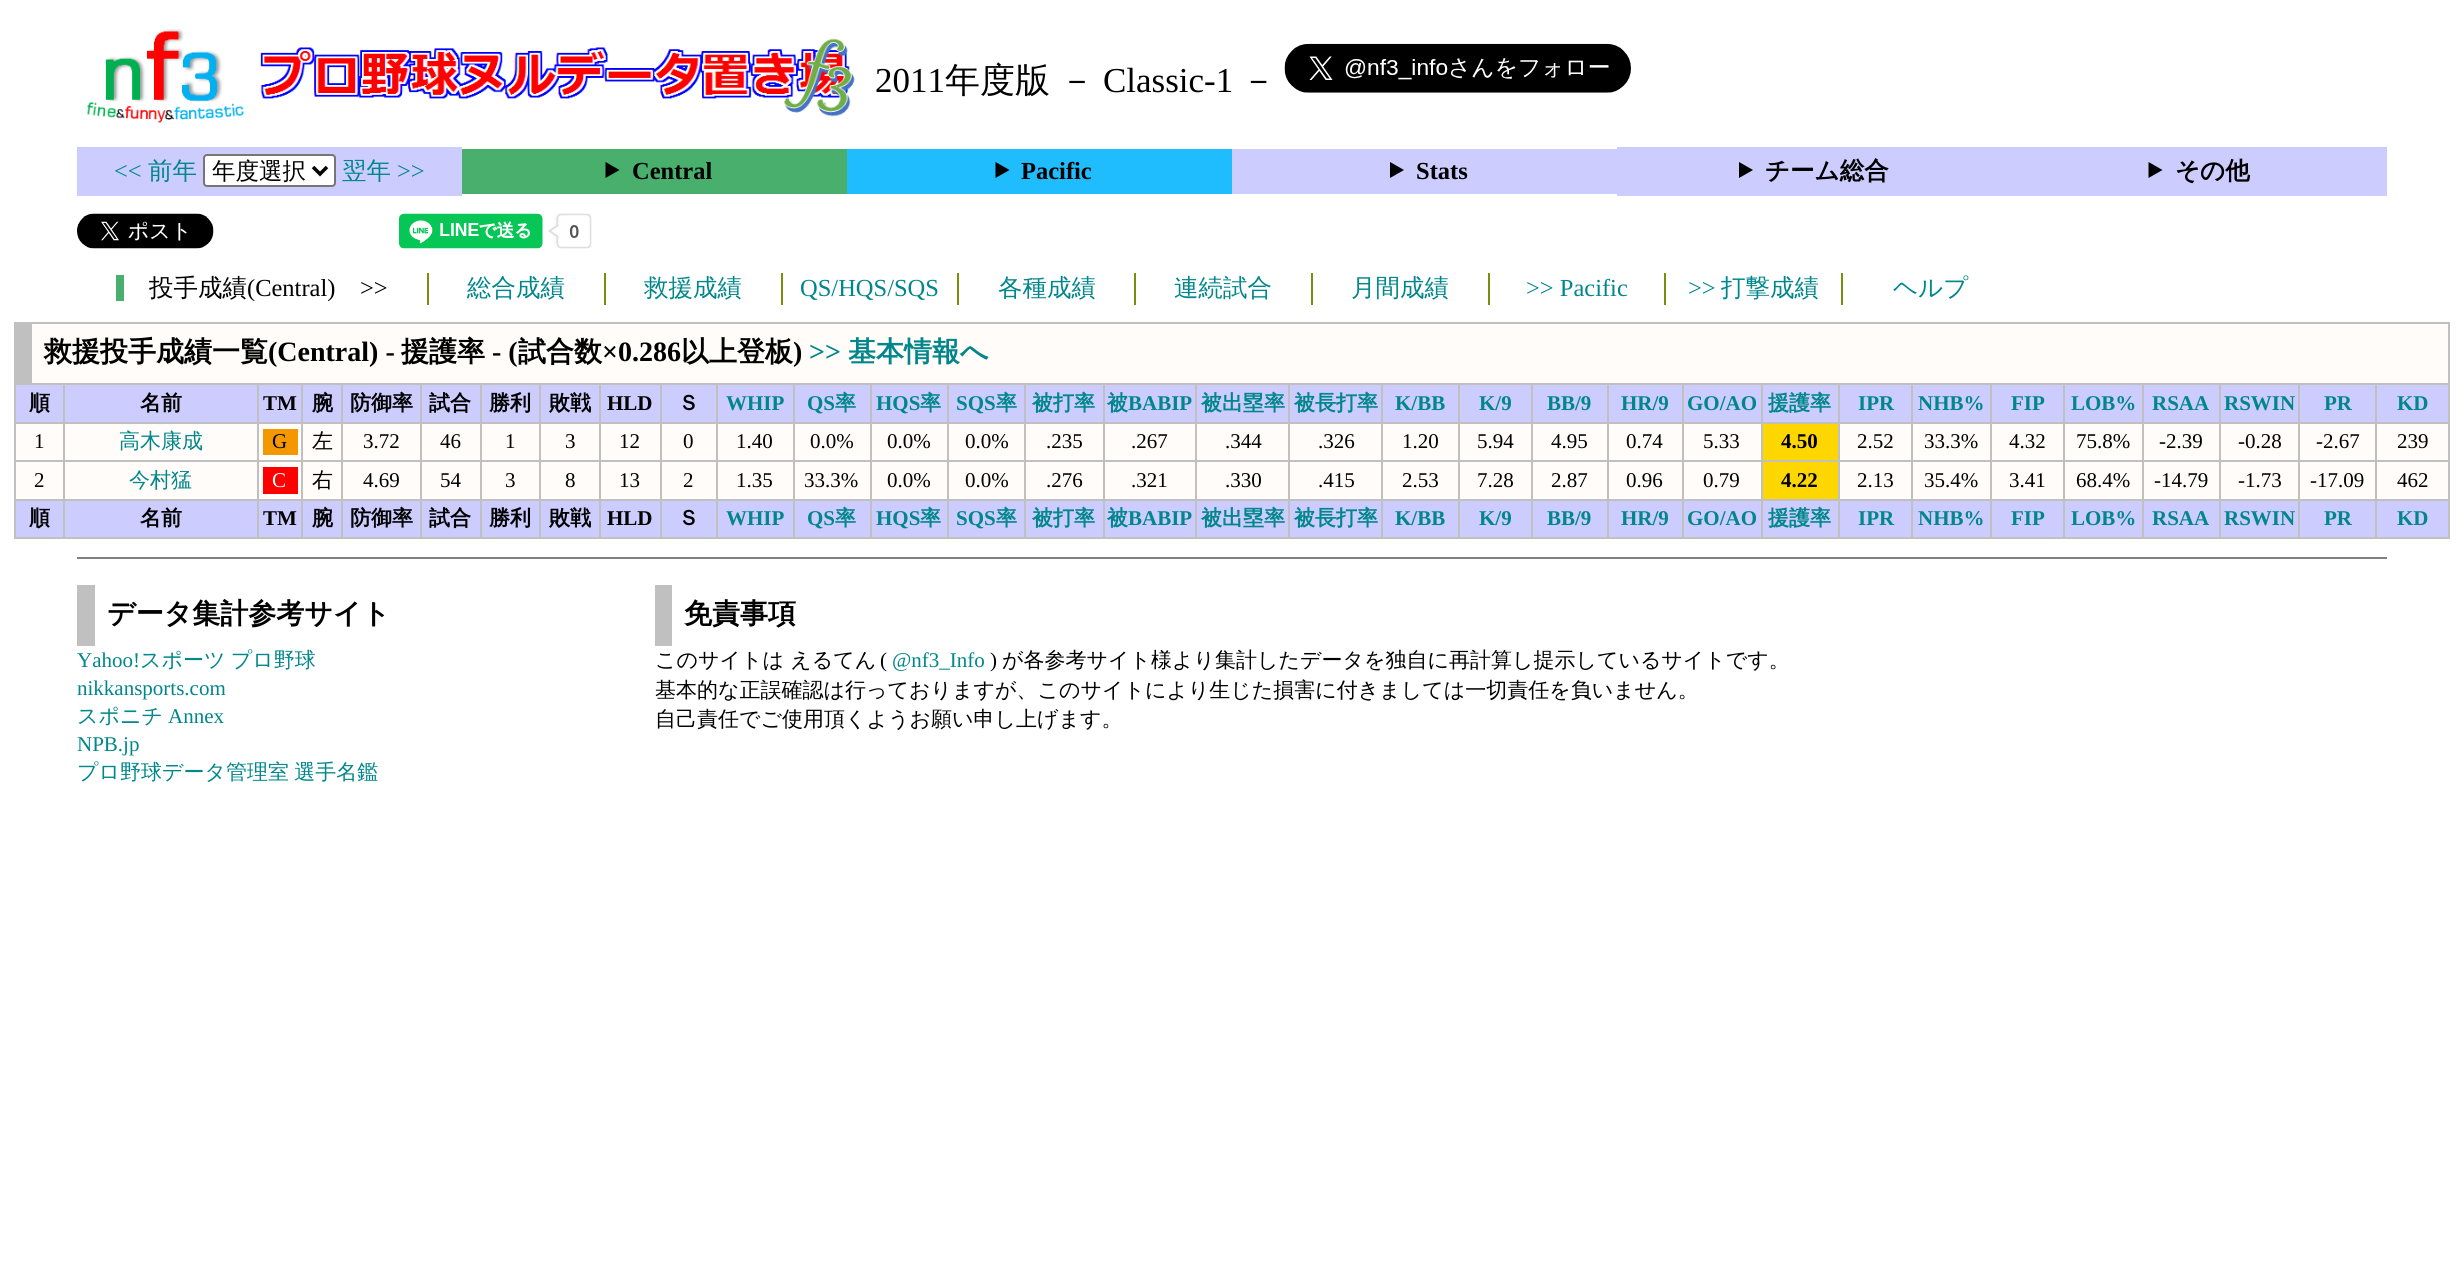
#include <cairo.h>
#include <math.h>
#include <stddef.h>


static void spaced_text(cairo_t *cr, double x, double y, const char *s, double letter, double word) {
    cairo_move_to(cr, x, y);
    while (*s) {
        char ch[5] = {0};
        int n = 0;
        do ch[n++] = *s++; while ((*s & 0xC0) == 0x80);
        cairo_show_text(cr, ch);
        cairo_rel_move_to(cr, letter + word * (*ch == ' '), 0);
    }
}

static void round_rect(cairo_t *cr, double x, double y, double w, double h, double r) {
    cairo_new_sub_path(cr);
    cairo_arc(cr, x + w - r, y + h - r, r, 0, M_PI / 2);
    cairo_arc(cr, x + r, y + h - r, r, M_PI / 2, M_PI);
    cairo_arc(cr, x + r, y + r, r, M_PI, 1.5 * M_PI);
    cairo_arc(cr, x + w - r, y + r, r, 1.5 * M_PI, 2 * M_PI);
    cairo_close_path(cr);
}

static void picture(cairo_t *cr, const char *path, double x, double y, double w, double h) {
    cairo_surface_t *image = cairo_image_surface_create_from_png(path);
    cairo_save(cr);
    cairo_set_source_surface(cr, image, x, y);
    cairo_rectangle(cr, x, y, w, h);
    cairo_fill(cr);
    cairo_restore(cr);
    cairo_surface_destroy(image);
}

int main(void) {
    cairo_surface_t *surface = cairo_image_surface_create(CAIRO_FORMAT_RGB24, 2464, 1283);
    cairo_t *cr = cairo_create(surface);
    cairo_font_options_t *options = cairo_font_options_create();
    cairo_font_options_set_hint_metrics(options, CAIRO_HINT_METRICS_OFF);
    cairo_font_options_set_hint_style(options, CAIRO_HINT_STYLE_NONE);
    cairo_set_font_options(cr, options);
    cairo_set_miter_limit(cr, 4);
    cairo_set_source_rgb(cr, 1, 1, 1);
    cairo_paint(cr);
    picture(cr, "img1.png", 86, 29, 159, 94);
    picture(cr, "img2.png", 260, 38, 595, 79);
    cairo_select_font_face(cr, "Liberation Serif", CAIRO_FONT_SLANT_NORMAL, CAIRO_FONT_WEIGHT_NORMAL);
    cairo_set_font_size(cr, 35);
    cairo_set_source_rgb(cr, 0, 0, 0);
    cairo_move_to(cr, 875, 92);
    cairo_show_text(cr, "2011");
    cairo_select_font_face(cr, "WenQuanYi Zen Hei Medium", CAIRO_FONT_SLANT_NORMAL, CAIRO_FONT_WEIGHT_NORMAL);
    spaced_text(cr, 945, 92, "年度版 －", 0, -1);
    cairo_select_font_face(cr, "Liberation Serif", CAIRO_FONT_SLANT_NORMAL, CAIRO_FONT_WEIGHT_NORMAL);
    cairo_move_to(cr, 1103, 92);
    cairo_show_text(cr, "Classic-1");
    cairo_select_font_face(cr, "WenQuanYi Zen Hei Medium", CAIRO_FONT_SLANT_NORMAL, CAIRO_FONT_WEIGHT_NORMAL);
    cairo_move_to(cr, 1241, 92);
    cairo_show_text(cr, "－");
    picture(cr, "img3.png", 1284, 43, 347, 50);
    cairo_set_source_rgb(cr, 0.8, 0.8, 1);
    cairo_rectangle(cr, 77, 147, 385, 49);
    cairo_fill(cr);
    cairo_select_font_face(cr, "Liberation Serif", CAIRO_FONT_SLANT_NORMAL, CAIRO_FONT_WEIGHT_NORMAL);
    cairo_set_font_size(cr, 24.5);
    cairo_set_source_rgb(cr, 0, 0.525, 0.545);
    cairo_move_to(cr, 114, 179);
    cairo_show_text(cr, "<<");
    cairo_select_font_face(cr, "WenQuanYi Zen Hei Medium", CAIRO_FONT_SLANT_NORMAL, CAIRO_FONT_WEIGHT_NORMAL);
    cairo_move_to(cr, 148, 179);
    cairo_show_text(cr, "前年");
    cairo_set_source_rgb(cr, 1, 1, 1);
    round_rect(cr, 204, 155, 131, 31, 3);
    cairo_fill_preserve(cr);
    cairo_set_source_rgb(cr, 0.463, 0.463, 0.463);
    cairo_stroke(cr);
    cairo_new_path(cr);
    cairo_move_to(cr, 313, 167);
    cairo_line_to(cr, 320, 174);
    cairo_line_to(cr, 327, 167);
    cairo_set_source_rgb(cr, 0, 0, 0);
    cairo_set_line_width(cr, 3.5);
    cairo_stroke(cr);
    cairo_set_font_size(cr, 23.5);
    cairo_move_to(cr, 212, 179);
    cairo_show_text(cr, "年度選択");
    cairo_set_font_size(cr, 24.5);
    cairo_set_source_rgb(cr, 0, 0.525, 0.545);
    cairo_move_to(cr, 342, 179);
    cairo_show_text(cr, "翌年");
    cairo_select_font_face(cr, "Liberation Serif", CAIRO_FONT_SLANT_NORMAL, CAIRO_FONT_WEIGHT_NORMAL);
    cairo_move_to(cr, 397, 179);
    cairo_show_text(cr, ">>");
    cairo_set_source_rgb(cr, 0.286, 0.686, 0.427);
    cairo_rectangle(cr, 462, 149, 385, 45);
    cairo_fill(cr);
    cairo_set_source_rgb(cr, 0, 0, 0);
    cairo_new_path(cr);
    cairo_move_to(cr, 605.5, 162);
    cairo_line_to(cr, 619.5, 170);
    cairo_line_to(cr, 605.5, 178);
    cairo_close_path(cr);
    cairo_fill(cr);
    cairo_select_font_face(cr, "Liberation Serif", CAIRO_FONT_SLANT_NORMAL, CAIRO_FONT_WEIGHT_BOLD);
    cairo_move_to(cr, 632, 179);
    cairo_show_text(cr, "Central");
    cairo_set_source_rgb(cr, 0.125, 0.741, 0.996);
    cairo_rectangle(cr, 847, 149, 385, 45);
    cairo_fill(cr);
    cairo_set_source_rgb(cr, 0, 0, 0);
    cairo_new_path(cr);
    cairo_move_to(cr, 995.5, 162);
    cairo_line_to(cr, 1009.5, 170);
    cairo_line_to(cr, 995.5, 178);
    cairo_close_path(cr);
    cairo_fill(cr);
    cairo_move_to(cr, 1021, 179);
    cairo_show_text(cr, "Pacific");
    cairo_set_source_rgb(cr, 0.8, 0.8, 1);
    cairo_rectangle(cr, 1232, 149, 385, 45);
    cairo_fill(cr);
    cairo_set_source_rgb(cr, 0, 0, 0);
    cairo_new_path(cr);
    cairo_move_to(cr, 1390, 162);
    cairo_line_to(cr, 1404, 170);
    cairo_line_to(cr, 1390, 178);
    cairo_close_path(cr);
    cairo_fill(cr);
    cairo_move_to(cr, 1416, 179);
    cairo_show_text(cr, "Stats");
    cairo_set_source_rgb(cr, 0.8, 0.8, 1);
    cairo_rectangle(cr, 1617, 147, 770, 49);
    cairo_fill(cr);
    cairo_set_source_rgb(cr, 0, 0, 0);
    cairo_new_path(cr);
    cairo_move_to(cr, 1739, 162);
    cairo_line_to(cr, 1753, 170);
    cairo_line_to(cr, 1739, 178);
    cairo_close_path(cr);
    cairo_fill(cr);
    cairo_select_font_face(cr, "WenQuanYi Zen Hei", CAIRO_FONT_SLANT_NORMAL, CAIRO_FONT_WEIGHT_BOLD);
    cairo_move_to(cr, 1765, 179);
    cairo_show_text(cr, "チーム総合");
    cairo_new_path(cr);
    cairo_move_to(cr, 2148.5, 162);
    cairo_line_to(cr, 2162.5, 170);
    cairo_line_to(cr, 2148.5, 178);
    cairo_close_path(cr);
    cairo_fill(cr);
    cairo_move_to(cr, 2175, 179);
    cairo_show_text(cr, "その他");
    picture(cr, "img4.png", 77, 213, 137, 36);
    picture(cr, "img5.png", 399, 213, 193, 36);
    cairo_select_font_face(cr, "WenQuanYi Zen Hei Medium", CAIRO_FONT_SLANT_NORMAL, CAIRO_FONT_WEIGHT_NORMAL);
    cairo_move_to(cr, 149, 296);
    cairo_show_text(cr, "投手成績");
    cairo_set_source_rgb(cr, 0.286, 0.686, 0.427);
    cairo_rectangle(cr, 116, 275, 8, 26);
    cairo_fill(cr);
    cairo_select_font_face(cr, "Liberation Serif", CAIRO_FONT_SLANT_NORMAL, CAIRO_FONT_WEIGHT_NORMAL);
    cairo_set_source_rgb(cr, 0, 0, 0);
    cairo_move_to(cr, 247, 296);
    cairo_show_text(cr, "(Central)");
    cairo_move_to(cr, 360, 296);
    cairo_show_text(cr, ">>");
    cairo_set_source_rgb(cr, 0.486, 0.549, 0.055);
    cairo_rectangle(cr, 427, 273, 2, 32);
    cairo_fill(cr);
    cairo_select_font_face(cr, "WenQuanYi Zen Hei Medium", CAIRO_FONT_SLANT_NORMAL, CAIRO_FONT_WEIGHT_NORMAL);
    cairo_set_source_rgb(cr, 0, 0.525, 0.545);
    cairo_move_to(cr, 467, 296);
    cairo_show_text(cr, "総合成績");
    cairo_set_source_rgb(cr, 0.486, 0.549, 0.055);
    cairo_rectangle(cr, 604, 273, 2, 32);
    cairo_fill(cr);
    cairo_set_source_rgb(cr, 0, 0.525, 0.545);
    cairo_move_to(cr, 644, 296);
    cairo_show_text(cr, "救援成績");
    cairo_set_source_rgb(cr, 0.486, 0.549, 0.055);
    cairo_rectangle(cr, 781, 273, 2, 32);
    cairo_fill(cr);
    cairo_select_font_face(cr, "Liberation Serif", CAIRO_FONT_SLANT_NORMAL, CAIRO_FONT_WEIGHT_NORMAL);
    cairo_set_source_rgb(cr, 0, 0.525, 0.545);
    cairo_move_to(cr, 800, 296);
    cairo_show_text(cr, "QS/HQS/SQS");
    cairo_set_source_rgb(cr, 0.486, 0.549, 0.055);
    cairo_rectangle(cr, 957, 273, 2, 32);
    cairo_fill(cr);
    cairo_select_font_face(cr, "WenQuanYi Zen Hei Medium", CAIRO_FONT_SLANT_NORMAL, CAIRO_FONT_WEIGHT_NORMAL);
    cairo_set_source_rgb(cr, 0, 0.525, 0.545);
    cairo_move_to(cr, 998, 296);
    cairo_show_text(cr, "各種成績");
    cairo_set_source_rgb(cr, 0.486, 0.549, 0.055);
    cairo_rectangle(cr, 1134, 273, 2, 32);
    cairo_fill(cr);
    cairo_set_source_rgb(cr, 0, 0.525, 0.545);
    cairo_move_to(cr, 1174, 296);
    cairo_show_text(cr, "連続試合");
    cairo_set_source_rgb(cr, 0.486, 0.549, 0.055);
    cairo_rectangle(cr, 1311, 273, 2, 32);
    cairo_fill(cr);
    cairo_set_source_rgb(cr, 0, 0.525, 0.545);
    cairo_move_to(cr, 1351, 296);
    cairo_show_text(cr, "月間成績");
    cairo_set_source_rgb(cr, 0.486, 0.549, 0.055);
    cairo_rectangle(cr, 1488, 273, 2, 32);
    cairo_fill(cr);
    cairo_select_font_face(cr, "Liberation Serif", CAIRO_FONT_SLANT_NORMAL, CAIRO_FONT_WEIGHT_NORMAL);
    cairo_set_source_rgb(cr, 0, 0.525, 0.545);
    cairo_move_to(cr, 1526, 296);
    cairo_show_text(cr, ">> Pacific");
    cairo_set_source_rgb(cr, 0.486, 0.549, 0.055);
    cairo_rectangle(cr, 1664, 273, 2, 32);
    cairo_fill(cr);
    cairo_set_source_rgb(cr, 0, 0.525, 0.545);
    cairo_move_to(cr, 1688, 296);
    cairo_show_text(cr, ">>");
    cairo_select_font_face(cr, "WenQuanYi Zen Hei Medium", CAIRO_FONT_SLANT_NORMAL, CAIRO_FONT_WEIGHT_NORMAL);
    cairo_move_to(cr, 1721, 296);
    cairo_show_text(cr, "打撃成績");
    cairo_set_source_rgb(cr, 0.486, 0.549, 0.055);
    cairo_rectangle(cr, 1841, 273, 2, 32);
    cairo_fill(cr);
    cairo_set_source_rgb(cr, 0, 0.525, 0.545);
    cairo_move_to(cr, 1893, 296);
    cairo_show_text(cr, "ヘルプ");
    cairo_set_source_rgb(cr, 1, 0.988, 0.973);
    cairo_rectangle(cr, 16, 324, 2432, 175);
    cairo_fill(cr);
    cairo_set_source_rgb(cr, 0.753, 0.753, 0.753);
    cairo_rectangle(cr, 14, 322, 2436, 2);
    cairo_fill(cr);
    cairo_rectangle(cr, 2448, 322, 2, 217);
    cairo_fill(cr);
    cairo_rectangle(cr, 14, 537, 2436, 2);
    cairo_fill(cr);
    cairo_rectangle(cr, 14, 322, 2, 217);
    cairo_fill(cr);
    cairo_rectangle(cr, 16, 324, 16, 59);
    cairo_fill(cr);
    cairo_select_font_face(cr, "WenQuanYi Zen Hei", CAIRO_FONT_SLANT_NORMAL, CAIRO_FONT_WEIGHT_BOLD);
    cairo_set_font_size(cr, 28);
    cairo_set_source_rgb(cr, 0, 0, 0);
    cairo_move_to(cr, 44, 361);
    cairo_show_text(cr, "救援投手成績一覧");
    cairo_select_font_face(cr, "Liberation Serif", CAIRO_FONT_SLANT_NORMAL, CAIRO_FONT_WEIGHT_BOLD);
    cairo_move_to(cr, 268, 361);
    cairo_show_text(cr, "(Central) -");
    cairo_select_font_face(cr, "WenQuanYi Zen Hei", CAIRO_FONT_SLANT_NORMAL, CAIRO_FONT_WEIGHT_BOLD);
    cairo_move_to(cr, 401, 361);
    cairo_show_text(cr, "援護率");
    cairo_select_font_face(cr, "Liberation Serif", CAIRO_FONT_SLANT_NORMAL, CAIRO_FONT_WEIGHT_BOLD);
    cairo_move_to(cr, 492, 361);
    cairo_show_text(cr, "- (");
    cairo_select_font_face(cr, "WenQuanYi Zen Hei", CAIRO_FONT_SLANT_NORMAL, CAIRO_FONT_WEIGHT_BOLD);
    cairo_move_to(cr, 518, 361);
    cairo_show_text(cr, "試合数");
    cairo_select_font_face(cr, "Liberation Serif", CAIRO_FONT_SLANT_NORMAL, CAIRO_FONT_WEIGHT_BOLD);
    cairo_move_to(cr, 602, 361);
    cairo_show_text(cr, "×0.286");
    cairo_select_font_face(cr, "WenQuanYi Zen Hei", CAIRO_FONT_SLANT_NORMAL, CAIRO_FONT_WEIGHT_BOLD);
    cairo_move_to(cr, 681, 361);
    cairo_show_text(cr, "以上登板");
    cairo_select_font_face(cr, "Liberation Serif", CAIRO_FONT_SLANT_NORMAL, CAIRO_FONT_WEIGHT_BOLD);
    cairo_move_to(cr, 793, 361);
    cairo_show_text(cr, ")");
    cairo_set_source_rgb(cr, 0, 0.525, 0.545);
    cairo_move_to(cr, 809, 361);
    cairo_show_text(cr, ">>");
    cairo_select_font_face(cr, "WenQuanYi Zen Hei", CAIRO_FONT_SLANT_NORMAL, CAIRO_FONT_WEIGHT_BOLD);
    cairo_move_to(cr, 848, 361);
    cairo_show_text(cr, "基本情報へ");
    cairo_set_source_rgb(cr, 0.8, 0.8, 1);
    cairo_rectangle(cr, 16, 385, 2432, 37);
    cairo_fill(cr);
    cairo_set_source_rgb(cr, 0.753, 0.753, 0.753);
    cairo_rectangle(cr, 2375, 383, 75, 2);
    cairo_fill(cr);
    cairo_rectangle(cr, 2375, 422, 75, 2);
    cairo_fill(cr);
    cairo_rectangle(cr, 2375, 460, 75, 2);
    cairo_fill(cr);
    cairo_rectangle(cr, 2375, 499, 75, 2);
    cairo_fill(cr);
    cairo_set_source_rgb(cr, 0.8, 0.8, 1);
    cairo_rectangle(cr, 16, 501, 2432, 36);
    cairo_fill(cr);
    cairo_set_source_rgb(cr, 0.753, 0.753, 0.753);
    cairo_rectangle(cr, 2375, 499, 2, 40);
    cairo_fill(cr);
    cairo_rectangle(cr, 2298, 499, 79, 2);
    cairo_fill(cr);
    cairo_rectangle(cr, 2375, 460, 2, 41);
    cairo_fill(cr);
    cairo_rectangle(cr, 2298, 460, 79, 2);
    cairo_fill(cr);
    cairo_rectangle(cr, 2375, 422, 2, 40);
    cairo_fill(cr);
    cairo_rectangle(cr, 2298, 422, 79, 2);
    cairo_fill(cr);
    cairo_rectangle(cr, 2375, 383, 2, 41);
    cairo_fill(cr);
    cairo_rectangle(cr, 2298, 383, 79, 2);
    cairo_fill(cr);
    cairo_rectangle(cr, 2298, 499, 2, 40);
    cairo_fill(cr);
    cairo_rectangle(cr, 2219, 499, 81, 2);
    cairo_fill(cr);
    cairo_rectangle(cr, 2298, 460, 2, 41);
    cairo_fill(cr);
    cairo_rectangle(cr, 2219, 460, 81, 2);
    cairo_fill(cr);
    cairo_rectangle(cr, 2298, 422, 2, 40);
    cairo_fill(cr);
    cairo_rectangle(cr, 2219, 422, 81, 2);
    cairo_fill(cr);
    cairo_rectangle(cr, 2298, 383, 2, 41);
    cairo_fill(cr);
    cairo_rectangle(cr, 2219, 383, 81, 2);
    cairo_fill(cr);
    cairo_rectangle(cr, 2219, 499, 2, 40);
    cairo_fill(cr);
    cairo_rectangle(cr, 2142, 499, 79, 2);
    cairo_fill(cr);
    cairo_rectangle(cr, 2219, 460, 2, 41);
    cairo_fill(cr);
    cairo_rectangle(cr, 2142, 460, 79, 2);
    cairo_fill(cr);
    cairo_rectangle(cr, 2219, 422, 2, 40);
    cairo_fill(cr);
    cairo_rectangle(cr, 2142, 422, 79, 2);
    cairo_fill(cr);
    cairo_rectangle(cr, 2219, 383, 2, 41);
    cairo_fill(cr);
    cairo_rectangle(cr, 2142, 383, 79, 2);
    cairo_fill(cr);
    cairo_rectangle(cr, 2142, 499, 2, 40);
    cairo_fill(cr);
    cairo_rectangle(cr, 2063, 499, 81, 2);
    cairo_fill(cr);
    cairo_rectangle(cr, 2142, 460, 2, 41);
    cairo_fill(cr);
    cairo_rectangle(cr, 2063, 460, 81, 2);
    cairo_fill(cr);
    cairo_rectangle(cr, 2142, 422, 2, 40);
    cairo_fill(cr);
    cairo_rectangle(cr, 2063, 422, 81, 2);
    cairo_fill(cr);
    cairo_rectangle(cr, 2142, 383, 2, 41);
    cairo_fill(cr);
    cairo_rectangle(cr, 2063, 383, 81, 2);
    cairo_fill(cr);
    cairo_rectangle(cr, 2063, 499, 2, 40);
    cairo_fill(cr);
    cairo_rectangle(cr, 1990, 499, 75, 2);
    cairo_fill(cr);
    cairo_rectangle(cr, 2063, 460, 2, 41);
    cairo_fill(cr);
    cairo_rectangle(cr, 1990, 460, 75, 2);
    cairo_fill(cr);
    cairo_rectangle(cr, 2063, 422, 2, 40);
    cairo_fill(cr);
    cairo_rectangle(cr, 1990, 422, 75, 2);
    cairo_fill(cr);
    cairo_rectangle(cr, 2063, 383, 2, 41);
    cairo_fill(cr);
    cairo_rectangle(cr, 1990, 383, 75, 2);
    cairo_fill(cr);
    cairo_rectangle(cr, 1990, 499, 2, 40);
    cairo_fill(cr);
    cairo_rectangle(cr, 1911, 499, 81, 2);
    cairo_fill(cr);
    cairo_rectangle(cr, 1990, 460, 2, 41);
    cairo_fill(cr);
    cairo_rectangle(cr, 1911, 460, 81, 2);
    cairo_fill(cr);
    cairo_rectangle(cr, 1990, 422, 2, 40);
    cairo_fill(cr);
    cairo_rectangle(cr, 1911, 422, 81, 2);
    cairo_fill(cr);
    cairo_rectangle(cr, 1990, 383, 2, 41);
    cairo_fill(cr);
    cairo_rectangle(cr, 1911, 383, 81, 2);
    cairo_fill(cr);
    cairo_rectangle(cr, 1911, 499, 2, 40);
    cairo_fill(cr);
    cairo_rectangle(cr, 1838, 499, 75, 2);
    cairo_fill(cr);
    cairo_rectangle(cr, 1911, 460, 2, 41);
    cairo_fill(cr);
    cairo_rectangle(cr, 1838, 460, 75, 2);
    cairo_fill(cr);
    cairo_rectangle(cr, 1911, 422, 2, 40);
    cairo_fill(cr);
    cairo_rectangle(cr, 1838, 422, 75, 2);
    cairo_fill(cr);
    cairo_rectangle(cr, 1911, 383, 2, 41);
    cairo_fill(cr);
    cairo_rectangle(cr, 1838, 383, 75, 2);
    cairo_fill(cr);
    cairo_rectangle(cr, 1838, 499, 2, 40);
    cairo_fill(cr);
    cairo_rectangle(cr, 1761, 499, 78, 2);
    cairo_fill(cr);
    cairo_rectangle(cr, 1838, 460, 2, 41);
    cairo_fill(cr);
    cairo_rectangle(cr, 1761, 460, 78, 2);
    cairo_fill(cr);
    cairo_rectangle(cr, 1838, 422, 2, 40);
    cairo_fill(cr);
    cairo_rectangle(cr, 1761, 422, 78, 2);
    cairo_fill(cr);
    cairo_rectangle(cr, 1838, 383, 2, 41);
    cairo_fill(cr);
    cairo_rectangle(cr, 1761, 383, 78, 2);
    cairo_fill(cr);
    cairo_rectangle(cr, 1761, 499, 2, 40);
    cairo_fill(cr);
    cairo_rectangle(cr, 1682, 499, 80, 2);
    cairo_fill(cr);
    cairo_rectangle(cr, 1761, 460, 2, 41);
    cairo_fill(cr);
    cairo_rectangle(cr, 1682, 460, 80, 2);
    cairo_fill(cr);
    cairo_rectangle(cr, 1761, 422, 2, 40);
    cairo_fill(cr);
    cairo_rectangle(cr, 1682, 422, 80, 2);
    cairo_fill(cr);
    cairo_rectangle(cr, 1761, 383, 2, 41);
    cairo_fill(cr);
    cairo_rectangle(cr, 1682, 383, 80, 2);
    cairo_fill(cr);
    cairo_rectangle(cr, 1682, 499, 2, 40);
    cairo_fill(cr);
    cairo_rectangle(cr, 1607, 499, 77, 2);
    cairo_fill(cr);
    cairo_rectangle(cr, 1682, 460, 2, 41);
    cairo_fill(cr);
    cairo_rectangle(cr, 1607, 460, 77, 2);
    cairo_fill(cr);
    cairo_rectangle(cr, 1682, 422, 2, 40);
    cairo_fill(cr);
    cairo_rectangle(cr, 1607, 422, 77, 2);
    cairo_fill(cr);
    cairo_rectangle(cr, 1682, 383, 2, 41);
    cairo_fill(cr);
    cairo_rectangle(cr, 1607, 383, 77, 2);
    cairo_fill(cr);
    cairo_rectangle(cr, 1607, 499, 2, 40);
    cairo_fill(cr);
    cairo_rectangle(cr, 1531, 499, 77, 2);
    cairo_fill(cr);
    cairo_rectangle(cr, 1607, 460, 2, 41);
    cairo_fill(cr);
    cairo_rectangle(cr, 1531, 460, 77, 2);
    cairo_fill(cr);
    cairo_rectangle(cr, 1607, 422, 2, 40);
    cairo_fill(cr);
    cairo_rectangle(cr, 1531, 422, 77, 2);
    cairo_fill(cr);
    cairo_rectangle(cr, 1607, 383, 2, 41);
    cairo_fill(cr);
    cairo_rectangle(cr, 1531, 383, 77, 2);
    cairo_fill(cr);
    cairo_rectangle(cr, 1531, 499, 2, 40);
    cairo_fill(cr);
    cairo_rectangle(cr, 1458, 499, 75, 2);
    cairo_fill(cr);
    cairo_rectangle(cr, 1531, 460, 2, 41);
    cairo_fill(cr);
    cairo_rectangle(cr, 1458, 460, 75, 2);
    cairo_fill(cr);
    cairo_rectangle(cr, 1531, 422, 2, 40);
    cairo_fill(cr);
    cairo_rectangle(cr, 1458, 422, 75, 2);
    cairo_fill(cr);
    cairo_rectangle(cr, 1531, 383, 2, 41);
    cairo_fill(cr);
    cairo_rectangle(cr, 1458, 383, 75, 2);
    cairo_fill(cr);
    cairo_rectangle(cr, 1458, 499, 2, 40);
    cairo_fill(cr);
    cairo_rectangle(cr, 1381, 499, 79, 2);
    cairo_fill(cr);
    cairo_rectangle(cr, 1458, 460, 2, 41);
    cairo_fill(cr);
    cairo_rectangle(cr, 1381, 460, 79, 2);
    cairo_fill(cr);
    cairo_rectangle(cr, 1458, 422, 2, 40);
    cairo_fill(cr);
    cairo_rectangle(cr, 1381, 422, 79, 2);
    cairo_fill(cr);
    cairo_rectangle(cr, 1458, 383, 2, 41);
    cairo_fill(cr);
    cairo_rectangle(cr, 1381, 383, 79, 2);
    cairo_fill(cr);
    cairo_rectangle(cr, 1381, 499, 2, 40);
    cairo_fill(cr);
    cairo_rectangle(cr, 1288, 499, 95, 2);
    cairo_fill(cr);
    cairo_rectangle(cr, 1381, 460, 2, 41);
    cairo_fill(cr);
    cairo_rectangle(cr, 1288, 460, 95, 2);
    cairo_fill(cr);
    cairo_rectangle(cr, 1381, 422, 2, 40);
    cairo_fill(cr);
    cairo_rectangle(cr, 1288, 422, 95, 2);
    cairo_fill(cr);
    cairo_rectangle(cr, 1381, 383, 2, 41);
    cairo_fill(cr);
    cairo_rectangle(cr, 1288, 383, 95, 2);
    cairo_fill(cr);
    cairo_rectangle(cr, 1288, 499, 2, 40);
    cairo_fill(cr);
    cairo_rectangle(cr, 1195, 499, 95, 2);
    cairo_fill(cr);
    cairo_rectangle(cr, 1288, 460, 2, 41);
    cairo_fill(cr);
    cairo_rectangle(cr, 1195, 460, 95, 2);
    cairo_fill(cr);
    cairo_rectangle(cr, 1288, 422, 2, 40);
    cairo_fill(cr);
    cairo_rectangle(cr, 1195, 422, 95, 2);
    cairo_fill(cr);
    cairo_rectangle(cr, 1288, 383, 2, 41);
    cairo_fill(cr);
    cairo_rectangle(cr, 1195, 383, 95, 2);
    cairo_fill(cr);
    cairo_rectangle(cr, 1195, 499, 2, 40);
    cairo_fill(cr);
    cairo_rectangle(cr, 1103, 499, 94, 2);
    cairo_fill(cr);
    cairo_rectangle(cr, 1195, 460, 2, 41);
    cairo_fill(cr);
    cairo_rectangle(cr, 1103, 460, 94, 2);
    cairo_fill(cr);
    cairo_rectangle(cr, 1195, 422, 2, 40);
    cairo_fill(cr);
    cairo_rectangle(cr, 1103, 422, 94, 2);
    cairo_fill(cr);
    cairo_rectangle(cr, 1195, 383, 2, 41);
    cairo_fill(cr);
    cairo_rectangle(cr, 1103, 383, 94, 2);
    cairo_fill(cr);
    cairo_rectangle(cr, 1103, 499, 2, 40);
    cairo_fill(cr);
    cairo_rectangle(cr, 1024, 499, 80, 2);
    cairo_fill(cr);
    cairo_rectangle(cr, 1103, 460, 2, 41);
    cairo_fill(cr);
    cairo_rectangle(cr, 1024, 460, 80, 2);
    cairo_fill(cr);
    cairo_rectangle(cr, 1103, 422, 2, 40);
    cairo_fill(cr);
    cairo_rectangle(cr, 1024, 422, 80, 2);
    cairo_fill(cr);
    cairo_rectangle(cr, 1103, 383, 2, 41);
    cairo_fill(cr);
    cairo_rectangle(cr, 1024, 383, 80, 2);
    cairo_fill(cr);
    cairo_rectangle(cr, 1024, 499, 2, 40);
    cairo_fill(cr);
    cairo_rectangle(cr, 947, 499, 79, 2);
    cairo_fill(cr);
    cairo_rectangle(cr, 1024, 460, 2, 41);
    cairo_fill(cr);
    cairo_rectangle(cr, 947, 460, 79, 2);
    cairo_fill(cr);
    cairo_rectangle(cr, 1024, 422, 2, 40);
    cairo_fill(cr);
    cairo_rectangle(cr, 947, 422, 79, 2);
    cairo_fill(cr);
    cairo_rectangle(cr, 1024, 383, 2, 41);
    cairo_fill(cr);
    cairo_rectangle(cr, 947, 383, 79, 2);
    cairo_fill(cr);
    cairo_rectangle(cr, 947, 499, 2, 40);
    cairo_fill(cr);
    cairo_rectangle(cr, 870, 499, 79, 2);
    cairo_fill(cr);
    cairo_rectangle(cr, 947, 460, 2, 41);
    cairo_fill(cr);
    cairo_rectangle(cr, 870, 460, 79, 2);
    cairo_fill(cr);
    cairo_rectangle(cr, 947, 422, 2, 40);
    cairo_fill(cr);
    cairo_rectangle(cr, 870, 422, 79, 2);
    cairo_fill(cr);
    cairo_rectangle(cr, 947, 383, 2, 41);
    cairo_fill(cr);
    cairo_rectangle(cr, 870, 383, 79, 2);
    cairo_fill(cr);
    cairo_rectangle(cr, 870, 499, 2, 40);
    cairo_fill(cr);
    cairo_rectangle(cr, 793, 499, 79, 2);
    cairo_fill(cr);
    cairo_rectangle(cr, 870, 460, 2, 41);
    cairo_fill(cr);
    cairo_rectangle(cr, 793, 460, 79, 2);
    cairo_fill(cr);
    cairo_rectangle(cr, 870, 422, 2, 40);
    cairo_fill(cr);
    cairo_rectangle(cr, 793, 422, 79, 2);
    cairo_fill(cr);
    cairo_rectangle(cr, 870, 383, 2, 41);
    cairo_fill(cr);
    cairo_rectangle(cr, 793, 383, 79, 2);
    cairo_fill(cr);
    cairo_rectangle(cr, 793, 499, 2, 40);
    cairo_fill(cr);
    cairo_rectangle(cr, 716, 499, 79, 2);
    cairo_fill(cr);
    cairo_rectangle(cr, 793, 460, 2, 41);
    cairo_fill(cr);
    cairo_rectangle(cr, 716, 460, 79, 2);
    cairo_fill(cr);
    cairo_rectangle(cr, 793, 422, 2, 40);
    cairo_fill(cr);
    cairo_rectangle(cr, 716, 422, 79, 2);
    cairo_fill(cr);
    cairo_rectangle(cr, 793, 383, 2, 41);
    cairo_fill(cr);
    cairo_rectangle(cr, 716, 383, 79, 2);
    cairo_fill(cr);
    cairo_rectangle(cr, 716, 499, 2, 40);
    cairo_fill(cr);
    cairo_rectangle(cr, 660, 499, 58, 2);
    cairo_fill(cr);
    cairo_rectangle(cr, 716, 460, 2, 41);
    cairo_fill(cr);
    cairo_rectangle(cr, 660, 460, 58, 2);
    cairo_fill(cr);
    cairo_rectangle(cr, 716, 422, 2, 40);
    cairo_fill(cr);
    cairo_rectangle(cr, 660, 422, 58, 2);
    cairo_fill(cr);
    cairo_rectangle(cr, 716, 383, 2, 41);
    cairo_fill(cr);
    cairo_rectangle(cr, 660, 383, 58, 2);
    cairo_fill(cr);
    cairo_rectangle(cr, 660, 499, 2, 40);
    cairo_fill(cr);
    cairo_rectangle(cr, 599, 499, 63, 2);
    cairo_fill(cr);
    cairo_rectangle(cr, 660, 460, 2, 41);
    cairo_fill(cr);
    cairo_rectangle(cr, 599, 460, 63, 2);
    cairo_fill(cr);
    cairo_rectangle(cr, 660, 422, 2, 40);
    cairo_fill(cr);
    cairo_rectangle(cr, 599, 422, 63, 2);
    cairo_fill(cr);
    cairo_rectangle(cr, 660, 383, 2, 41);
    cairo_fill(cr);
    cairo_rectangle(cr, 599, 383, 63, 2);
    cairo_fill(cr);
    cairo_rectangle(cr, 599, 499, 2, 40);
    cairo_fill(cr);
    cairo_rectangle(cr, 539, 499, 61, 2);
    cairo_fill(cr);
    cairo_rectangle(cr, 599, 460, 2, 41);
    cairo_fill(cr);
    cairo_rectangle(cr, 539, 460, 61, 2);
    cairo_fill(cr);
    cairo_rectangle(cr, 599, 422, 2, 40);
    cairo_fill(cr);
    cairo_rectangle(cr, 539, 422, 61, 2);
    cairo_fill(cr);
    cairo_rectangle(cr, 599, 383, 2, 41);
    cairo_fill(cr);
    cairo_rectangle(cr, 539, 383, 61, 2);
    cairo_fill(cr);
    cairo_rectangle(cr, 539, 499, 2, 40);
    cairo_fill(cr);
    cairo_rectangle(cr, 480, 499, 61, 2);
    cairo_fill(cr);
    cairo_rectangle(cr, 539, 460, 2, 41);
    cairo_fill(cr);
    cairo_rectangle(cr, 480, 460, 61, 2);
    cairo_fill(cr);
    cairo_rectangle(cr, 539, 422, 2, 40);
    cairo_fill(cr);
    cairo_rectangle(cr, 480, 422, 61, 2);
    cairo_fill(cr);
    cairo_rectangle(cr, 539, 383, 2, 41);
    cairo_fill(cr);
    cairo_rectangle(cr, 480, 383, 61, 2);
    cairo_fill(cr);
    cairo_rectangle(cr, 480, 499, 2, 40);
    cairo_fill(cr);
    cairo_rectangle(cr, 420, 499, 61, 2);
    cairo_fill(cr);
    cairo_rectangle(cr, 480, 460, 2, 41);
    cairo_fill(cr);
    cairo_rectangle(cr, 420, 460, 61, 2);
    cairo_fill(cr);
    cairo_rectangle(cr, 480, 422, 2, 40);
    cairo_fill(cr);
    cairo_rectangle(cr, 420, 422, 61, 2);
    cairo_fill(cr);
    cairo_rectangle(cr, 480, 383, 2, 41);
    cairo_fill(cr);
    cairo_rectangle(cr, 420, 383, 61, 2);
    cairo_fill(cr);
    cairo_rectangle(cr, 420, 499, 2, 40);
    cairo_fill(cr);
    cairo_rectangle(cr, 341, 499, 81, 2);
    cairo_fill(cr);
    cairo_rectangle(cr, 420, 460, 2, 41);
    cairo_fill(cr);
    cairo_rectangle(cr, 341, 460, 81, 2);
    cairo_fill(cr);
    cairo_rectangle(cr, 420, 422, 2, 40);
    cairo_fill(cr);
    cairo_rectangle(cr, 341, 422, 81, 2);
    cairo_fill(cr);
    cairo_rectangle(cr, 420, 383, 2, 41);
    cairo_fill(cr);
    cairo_rectangle(cr, 341, 383, 81, 2);
    cairo_fill(cr);
    cairo_rectangle(cr, 341, 499, 2, 40);
    cairo_fill(cr);
    cairo_rectangle(cr, 301, 499, 42, 2);
    cairo_fill(cr);
    cairo_rectangle(cr, 341, 460, 2, 41);
    cairo_fill(cr);
    cairo_rectangle(cr, 301, 460, 42, 2);
    cairo_fill(cr);
    cairo_rectangle(cr, 341, 422, 2, 40);
    cairo_fill(cr);
    cairo_rectangle(cr, 301, 422, 42, 2);
    cairo_fill(cr);
    cairo_rectangle(cr, 341, 383, 2, 41);
    cairo_fill(cr);
    cairo_rectangle(cr, 301, 383, 42, 2);
    cairo_fill(cr);
    cairo_rectangle(cr, 301, 499, 2, 40);
    cairo_fill(cr);
    cairo_rectangle(cr, 257, 499, 46, 2);
    cairo_fill(cr);
    cairo_rectangle(cr, 301, 460, 2, 41);
    cairo_fill(cr);
    cairo_rectangle(cr, 257, 460, 46, 2);
    cairo_fill(cr);
    cairo_rectangle(cr, 301, 422, 2, 40);
    cairo_fill(cr);
    cairo_rectangle(cr, 257, 422, 46, 2);
    cairo_fill(cr);
    cairo_rectangle(cr, 301, 383, 2, 41);
    cairo_fill(cr);
    cairo_rectangle(cr, 257, 383, 46, 2);
    cairo_fill(cr);
    cairo_rectangle(cr, 257, 499, 2, 40);
    cairo_fill(cr);
    cairo_rectangle(cr, 63, 499, 196, 2);
    cairo_fill(cr);
    cairo_rectangle(cr, 257, 460, 2, 41);
    cairo_fill(cr);
    cairo_rectangle(cr, 63, 460, 196, 2);
    cairo_fill(cr);
    cairo_rectangle(cr, 257, 422, 2, 40);
    cairo_fill(cr);
    cairo_rectangle(cr, 63, 422, 196, 2);
    cairo_fill(cr);
    cairo_rectangle(cr, 257, 383, 2, 41);
    cairo_fill(cr);
    cairo_rectangle(cr, 63, 383, 196, 2);
    cairo_fill(cr);
    cairo_rectangle(cr, 63, 499, 2, 40);
    cairo_fill(cr);
    cairo_rectangle(cr, 14, 499, 51, 2);
    cairo_fill(cr);
    cairo_rectangle(cr, 63, 460, 2, 41);
    cairo_fill(cr);
    cairo_rectangle(cr, 14, 460, 51, 2);
    cairo_fill(cr);
    cairo_rectangle(cr, 63, 422, 2, 40);
    cairo_fill(cr);
    cairo_rectangle(cr, 14, 422, 51, 2);
    cairo_fill(cr);
    cairo_rectangle(cr, 63, 383, 2, 41);
    cairo_fill(cr);
    cairo_rectangle(cr, 14, 383, 51, 2);
    cairo_fill(cr);
    cairo_set_font_size(cr, 21);
    cairo_set_source_rgb(cr, 0, 0, 0);
    cairo_move_to(cr, 29, 410);
    cairo_show_text(cr, "順");
    cairo_move_to(cr, 140, 410);
    cairo_show_text(cr, "名前");
    cairo_select_font_face(cr, "Liberation Serif", CAIRO_FONT_SLANT_NORMAL, CAIRO_FONT_WEIGHT_BOLD);
    cairo_move_to(cr, 263, 410);
    cairo_show_text(cr, "TM");
    cairo_select_font_face(cr, "WenQuanYi Zen Hei", CAIRO_FONT_SLANT_NORMAL, CAIRO_FONT_WEIGHT_BOLD);
    cairo_move_to(cr, 312, 410);
    cairo_show_text(cr, "腕");
    cairo_move_to(cr, 350, 410);
    cairo_show_text(cr, "防御率");
    cairo_move_to(cr, 429, 410);
    cairo_show_text(cr, "試合");
    cairo_move_to(cr, 489, 410);
    cairo_show_text(cr, "勝利");
    cairo_move_to(cr, 549, 410);
    cairo_show_text(cr, "敗戦");
    cairo_select_font_face(cr, "Liberation Serif", CAIRO_FONT_SLANT_NORMAL, CAIRO_FONT_WEIGHT_BOLD);
    cairo_move_to(cr, 607, 410);
    cairo_show_text(cr, "HLD");
    cairo_select_font_face(cr, "WenQuanYi Zen Hei", CAIRO_FONT_SLANT_NORMAL, CAIRO_FONT_WEIGHT_BOLD);
    cairo_move_to(cr, 678, 410);
    cairo_show_text(cr, "Ｓ");
    cairo_select_font_face(cr, "Liberation Serif", CAIRO_FONT_SLANT_NORMAL, CAIRO_FONT_WEIGHT_BOLD);
    cairo_set_source_rgb(cr, 0, 0.525, 0.545);
    cairo_move_to(cr, 726, 410);
    cairo_show_text(cr, "WHIP");
    cairo_move_to(cr, 807, 410);
    cairo_show_text(cr, "QS");
    cairo_select_font_face(cr, "WenQuanYi Zen Hei", CAIRO_FONT_SLANT_NORMAL, CAIRO_FONT_WEIGHT_BOLD);
    cairo_move_to(cr, 835, 410);
    cairo_show_text(cr, "率");
    cairo_select_font_face(cr, "Liberation Serif", CAIRO_FONT_SLANT_NORMAL, CAIRO_FONT_WEIGHT_BOLD);
    cairo_move_to(cr, 876, 410);
    cairo_show_text(cr, "HQS");
    cairo_select_font_face(cr, "WenQuanYi Zen Hei", CAIRO_FONT_SLANT_NORMAL, CAIRO_FONT_WEIGHT_BOLD);
    cairo_move_to(cr, 920, 410);
    cairo_show_text(cr, "率");
    cairo_select_font_face(cr, "Liberation Serif", CAIRO_FONT_SLANT_NORMAL, CAIRO_FONT_WEIGHT_BOLD);
    cairo_move_to(cr, 956, 410);
    cairo_show_text(cr, "SQS");
    cairo_select_font_face(cr, "WenQuanYi Zen Hei", CAIRO_FONT_SLANT_NORMAL, CAIRO_FONT_WEIGHT_BOLD);
    cairo_move_to(cr, 996, 410);
    cairo_show_text(cr, "率");
    cairo_move_to(cr, 1032, 410);
    cairo_show_text(cr, "被打率");
    cairo_move_to(cr, 1107, 410);
    cairo_show_text(cr, "被");
    cairo_select_font_face(cr, "Liberation Serif", CAIRO_FONT_SLANT_NORMAL, CAIRO_FONT_WEIGHT_BOLD);
    cairo_move_to(cr, 1128, 410);
    cairo_show_text(cr, "BABIP");
    cairo_select_font_face(cr, "WenQuanYi Zen Hei", CAIRO_FONT_SLANT_NORMAL, CAIRO_FONT_WEIGHT_BOLD);
    cairo_move_to(cr, 1201, 410);
    cairo_show_text(cr, "被出塁率");
    cairo_move_to(cr, 1294, 410);
    cairo_show_text(cr, "被長打率");
    cairo_select_font_face(cr, "Liberation Serif", CAIRO_FONT_SLANT_NORMAL, CAIRO_FONT_WEIGHT_BOLD);
    cairo_move_to(cr, 1395, 410);
    cairo_show_text(cr, "K/BB");
    cairo_move_to(cr, 1479, 410);
    cairo_show_text(cr, "K/9");
    cairo_move_to(cr, 1547, 410);
    cairo_show_text(cr, "BB/9");
    cairo_move_to(cr, 1621, 410);
    cairo_show_text(cr, "HR/9");
    cairo_move_to(cr, 1687, 410);
    cairo_show_text(cr, "GO/AO");
    cairo_select_font_face(cr, "WenQuanYi Zen Hei", CAIRO_FONT_SLANT_NORMAL, CAIRO_FONT_WEIGHT_BOLD);
    cairo_move_to(cr, 1768, 410);
    cairo_show_text(cr, "援護率");
    cairo_select_font_face(cr, "Liberation Serif", CAIRO_FONT_SLANT_NORMAL, CAIRO_FONT_WEIGHT_BOLD);
    cairo_move_to(cr, 1858, 410);
    cairo_show_text(cr, "IPR");
    cairo_move_to(cr, 1918, 410);
    cairo_show_text(cr, "NHB%");
    cairo_move_to(cr, 2011, 410);
    cairo_show_text(cr, "FIP");
    cairo_move_to(cr, 2071, 410);
    cairo_show_text(cr, "LOB%");
    cairo_move_to(cr, 2152, 410);
    cairo_show_text(cr, "RSAA");
    cairo_move_to(cr, 2224, 410);
    cairo_show_text(cr, "RSWIN");
    cairo_move_to(cr, 2324, 410);
    cairo_show_text(cr, "PR");
    cairo_move_to(cr, 2397, 410);
    cairo_show_text(cr, "KD");
    cairo_select_font_face(cr, "Liberation Serif", CAIRO_FONT_SLANT_NORMAL, CAIRO_FONT_WEIGHT_NORMAL);
    cairo_set_source_rgb(cr, 0, 0, 0);
    cairo_move_to(cr, 34, 448);
    cairo_show_text(cr, "1");
    cairo_select_font_face(cr, "WenQuanYi Zen Hei Medium", CAIRO_FONT_SLANT_NORMAL, CAIRO_FONT_WEIGHT_NORMAL);
    cairo_set_source_rgb(cr, 0, 0.525, 0.545);
    cairo_move_to(cr, 119, 448);
    cairo_show_text(cr, "高木康成");
    cairo_set_source_rgb(cr, 0.953, 0.596, 0);
    cairo_rectangle(cr, 263, 429, 35, 26);
    cairo_fill(cr);
    cairo_select_font_face(cr, "Liberation Serif", CAIRO_FONT_SLANT_NORMAL, CAIRO_FONT_WEIGHT_NORMAL);
    cairo_set_source_rgb(cr, 0, 0, 0);
    cairo_move_to(cr, 272, 448);
    cairo_show_text(cr, "G");
    cairo_select_font_face(cr, "WenQuanYi Zen Hei Medium", CAIRO_FONT_SLANT_NORMAL, CAIRO_FONT_WEIGHT_NORMAL);
    cairo_move_to(cr, 312, 448);
    cairo_show_text(cr, "左");
    cairo_select_font_face(cr, "Liberation Serif", CAIRO_FONT_SLANT_NORMAL, CAIRO_FONT_WEIGHT_NORMAL);
    cairo_move_to(cr, 363, 448);
    cairo_show_text(cr, "3.72");
    cairo_move_to(cr, 440, 448);
    cairo_show_text(cr, "46");
    cairo_move_to(cr, 505, 448);
    cairo_show_text(cr, "1");
    cairo_move_to(cr, 565, 448);
    cairo_show_text(cr, "3");
    cairo_move_to(cr, 619, 448);
    cairo_show_text(cr, "12");
    cairo_move_to(cr, 683, 448);
    cairo_show_text(cr, "0");
    cairo_move_to(cr, 736, 448);
    cairo_show_text(cr, "1.40");
    cairo_move_to(cr, 810, 448);
    cairo_show_text(cr, "0.0%");
    cairo_move_to(cr, 887, 448);
    cairo_show_text(cr, "0.0%");
    cairo_move_to(cr, 965, 448);
    cairo_show_text(cr, "0.0%");
    cairo_move_to(cr, 1046, 448);
    cairo_show_text(cr, ".235");
    cairo_move_to(cr, 1131, 448);
    cairo_show_text(cr, ".267");
    cairo_move_to(cr, 1225, 448);
    cairo_show_text(cr, ".344");
    cairo_move_to(cr, 1318, 448);
    cairo_show_text(cr, ".326");
    cairo_move_to(cr, 1402, 448);
    cairo_show_text(cr, "1.20");
    cairo_move_to(cr, 1477, 448);
    cairo_show_text(cr, "5.94");
    cairo_move_to(cr, 1551, 448);
    cairo_show_text(cr, "4.95");
    cairo_move_to(cr, 1626, 448);
    cairo_show_text(cr, "0.74");
    cairo_move_to(cr, 1703, 448);
    cairo_show_text(cr, "5.33");
    cairo_set_source_rgb(cr, 1, 0.843, 0);
    cairo_rectangle(cr, 1763, 424, 75, 36);
    cairo_fill(cr);
    cairo_select_font_face(cr, "Liberation Serif", CAIRO_FONT_SLANT_NORMAL, CAIRO_FONT_WEIGHT_BOLD);
    cairo_set_source_rgb(cr, 0, 0, 0);
    cairo_move_to(cr, 1781, 448);
    cairo_show_text(cr, "4.50");
    cairo_select_font_face(cr, "Liberation Serif", CAIRO_FONT_SLANT_NORMAL, CAIRO_FONT_WEIGHT_NORMAL);
    cairo_move_to(cr, 1857, 448);
    cairo_show_text(cr, "2.52");
    cairo_move_to(cr, 1924, 448);
    cairo_show_text(cr, "33.3%");
    cairo_move_to(cr, 2009, 448);
    cairo_show_text(cr, "4.32");
    cairo_move_to(cr, 2076, 448);
    cairo_show_text(cr, "75.8%");
    cairo_move_to(cr, 2159, 448);
    cairo_show_text(cr, "-2.39");
    cairo_move_to(cr, 2238, 448);
    cairo_show_text(cr, "-0.28");
    cairo_move_to(cr, 2316, 448);
    cairo_show_text(cr, "-2.67");
    cairo_move_to(cr, 2397, 448);
    cairo_show_text(cr, "239");
    cairo_move_to(cr, 34, 487);
    cairo_show_text(cr, "2");
    cairo_select_font_face(cr, "WenQuanYi Zen Hei Medium", CAIRO_FONT_SLANT_NORMAL, CAIRO_FONT_WEIGHT_NORMAL);
    cairo_set_source_rgb(cr, 0, 0.525, 0.545);
    cairo_move_to(cr, 129, 487);
    cairo_show_text(cr, "今村猛");
    cairo_set_source_rgb(cr, 1, 0, 0);
    cairo_rectangle(cr, 263, 467, 35, 27);
    cairo_fill(cr);
    cairo_select_font_face(cr, "Liberation Serif", CAIRO_FONT_SLANT_NORMAL, CAIRO_FONT_WEIGHT_NORMAL);
    cairo_set_source_rgb(cr, 1, 1, 1);
    cairo_move_to(cr, 272, 487);
    cairo_show_text(cr, "C");
    cairo_select_font_face(cr, "WenQuanYi Zen Hei Medium", CAIRO_FONT_SLANT_NORMAL, CAIRO_FONT_WEIGHT_NORMAL);
    cairo_set_source_rgb(cr, 0, 0, 0);
    cairo_move_to(cr, 312, 487);
    cairo_show_text(cr, "右");
    cairo_select_font_face(cr, "Liberation Serif", CAIRO_FONT_SLANT_NORMAL, CAIRO_FONT_WEIGHT_NORMAL);
    cairo_move_to(cr, 363, 487);
    cairo_show_text(cr, "4.69");
    cairo_move_to(cr, 440, 487);
    cairo_show_text(cr, "54");
    cairo_move_to(cr, 505, 487);
    cairo_show_text(cr, "3");
    cairo_move_to(cr, 565, 487);
    cairo_show_text(cr, "8");
    cairo_move_to(cr, 619, 487);
    cairo_show_text(cr, "13");
    cairo_move_to(cr, 683, 487);
    cairo_show_text(cr, "2");
    cairo_move_to(cr, 736, 487);
    cairo_show_text(cr, "1.35");
    cairo_move_to(cr, 804, 487);
    cairo_show_text(cr, "33.3%");
    cairo_move_to(cr, 887, 487);
    cairo_show_text(cr, "0.0%");
    cairo_move_to(cr, 965, 487);
    cairo_show_text(cr, "0.0%");
    cairo_move_to(cr, 1046, 487);
    cairo_show_text(cr, ".276");
    cairo_move_to(cr, 1131, 487);
    cairo_show_text(cr, ".321");
    cairo_move_to(cr, 1225, 487);
    cairo_show_text(cr, ".330");
    cairo_move_to(cr, 1318, 487);
    cairo_show_text(cr, ".415");
    cairo_move_to(cr, 1402, 487);
    cairo_show_text(cr, "2.53");
    cairo_move_to(cr, 1477, 487);
    cairo_show_text(cr, "7.28");
    cairo_move_to(cr, 1551, 487);
    cairo_show_text(cr, "2.87");
    cairo_move_to(cr, 1626, 487);
    cairo_show_text(cr, "0.96");
    cairo_move_to(cr, 1703, 487);
    cairo_show_text(cr, "0.79");
    cairo_set_source_rgb(cr, 1, 0.843, 0);
    cairo_rectangle(cr, 1763, 462, 75, 37);
    cairo_fill(cr);
    cairo_select_font_face(cr, "Liberation Serif", CAIRO_FONT_SLANT_NORMAL, CAIRO_FONT_WEIGHT_BOLD);
    cairo_set_source_rgb(cr, 0, 0, 0);
    cairo_move_to(cr, 1781, 487);
    cairo_show_text(cr, "4.22");
    cairo_select_font_face(cr, "Liberation Serif", CAIRO_FONT_SLANT_NORMAL, CAIRO_FONT_WEIGHT_NORMAL);
    cairo_move_to(cr, 1857, 487);
    cairo_show_text(cr, "2.13");
    cairo_move_to(cr, 1924, 487);
    cairo_show_text(cr, "35.4%");
    cairo_move_to(cr, 2009, 487);
    cairo_show_text(cr, "3.41");
    cairo_move_to(cr, 2076, 487);
    cairo_show_text(cr, "68.4%");
    cairo_move_to(cr, 2154, 487);
    cairo_show_text(cr, "-14.79");
    cairo_move_to(cr, 2238, 487);
    cairo_show_text(cr, "-1.73");
    cairo_move_to(cr, 2310, 487);
    cairo_show_text(cr, "-17.09");
    cairo_move_to(cr, 2397, 487);
    cairo_show_text(cr, "462");
    cairo_select_font_face(cr, "WenQuanYi Zen Hei", CAIRO_FONT_SLANT_NORMAL, CAIRO_FONT_WEIGHT_BOLD);
    cairo_move_to(cr, 29, 525);
    cairo_show_text(cr, "順");
    cairo_move_to(cr, 140, 525);
    cairo_show_text(cr, "名前");
    cairo_select_font_face(cr, "Liberation Serif", CAIRO_FONT_SLANT_NORMAL, CAIRO_FONT_WEIGHT_BOLD);
    cairo_move_to(cr, 263, 525);
    cairo_show_text(cr, "TM");
    cairo_select_font_face(cr, "WenQuanYi Zen Hei", CAIRO_FONT_SLANT_NORMAL, CAIRO_FONT_WEIGHT_BOLD);
    cairo_move_to(cr, 312, 525);
    cairo_show_text(cr, "腕");
    cairo_move_to(cr, 350, 525);
    cairo_show_text(cr, "防御率");
    cairo_move_to(cr, 429, 525);
    cairo_show_text(cr, "試合");
    cairo_move_to(cr, 489, 525);
    cairo_show_text(cr, "勝利");
    cairo_move_to(cr, 549, 525);
    cairo_show_text(cr, "敗戦");
    cairo_select_font_face(cr, "Liberation Serif", CAIRO_FONT_SLANT_NORMAL, CAIRO_FONT_WEIGHT_BOLD);
    cairo_move_to(cr, 607, 525);
    cairo_show_text(cr, "HLD");
    cairo_select_font_face(cr, "WenQuanYi Zen Hei", CAIRO_FONT_SLANT_NORMAL, CAIRO_FONT_WEIGHT_BOLD);
    cairo_move_to(cr, 678, 525);
    cairo_show_text(cr, "Ｓ");
    cairo_select_font_face(cr, "Liberation Serif", CAIRO_FONT_SLANT_NORMAL, CAIRO_FONT_WEIGHT_BOLD);
    cairo_set_source_rgb(cr, 0, 0.525, 0.545);
    cairo_move_to(cr, 726, 525);
    cairo_show_text(cr, "WHIP");
    cairo_move_to(cr, 807, 525);
    cairo_show_text(cr, "QS");
    cairo_select_font_face(cr, "WenQuanYi Zen Hei", CAIRO_FONT_SLANT_NORMAL, CAIRO_FONT_WEIGHT_BOLD);
    cairo_move_to(cr, 835, 525);
    cairo_show_text(cr, "率");
    cairo_select_font_face(cr, "Liberation Serif", CAIRO_FONT_SLANT_NORMAL, CAIRO_FONT_WEIGHT_BOLD);
    cairo_move_to(cr, 876, 525);
    cairo_show_text(cr, "HQS");
    cairo_select_font_face(cr, "WenQuanYi Zen Hei", CAIRO_FONT_SLANT_NORMAL, CAIRO_FONT_WEIGHT_BOLD);
    cairo_move_to(cr, 920, 525);
    cairo_show_text(cr, "率");
    cairo_select_font_face(cr, "Liberation Serif", CAIRO_FONT_SLANT_NORMAL, CAIRO_FONT_WEIGHT_BOLD);
    cairo_move_to(cr, 956, 525);
    cairo_show_text(cr, "SQS");
    cairo_select_font_face(cr, "WenQuanYi Zen Hei", CAIRO_FONT_SLANT_NORMAL, CAIRO_FONT_WEIGHT_BOLD);
    cairo_move_to(cr, 996, 525);
    cairo_show_text(cr, "率");
    cairo_move_to(cr, 1032, 525);
    cairo_show_text(cr, "被打率");
    cairo_move_to(cr, 1107, 525);
    cairo_show_text(cr, "被");
    cairo_select_font_face(cr, "Liberation Serif", CAIRO_FONT_SLANT_NORMAL, CAIRO_FONT_WEIGHT_BOLD);
    cairo_move_to(cr, 1128, 525);
    cairo_show_text(cr, "BABIP");
    cairo_select_font_face(cr, "WenQuanYi Zen Hei", CAIRO_FONT_SLANT_NORMAL, CAIRO_FONT_WEIGHT_BOLD);
    cairo_move_to(cr, 1201, 525);
    cairo_show_text(cr, "被出塁率");
    cairo_move_to(cr, 1294, 525);
    cairo_show_text(cr, "被長打率");
    cairo_select_font_face(cr, "Liberation Serif", CAIRO_FONT_SLANT_NORMAL, CAIRO_FONT_WEIGHT_BOLD);
    cairo_move_to(cr, 1395, 525);
    cairo_show_text(cr, "K/BB");
    cairo_move_to(cr, 1479, 525);
    cairo_show_text(cr, "K/9");
    cairo_move_to(cr, 1547, 525);
    cairo_show_text(cr, "BB/9");
    cairo_move_to(cr, 1621, 525);
    cairo_show_text(cr, "HR/9");
    cairo_move_to(cr, 1687, 525);
    cairo_show_text(cr, "GO/AO");
    cairo_select_font_face(cr, "WenQuanYi Zen Hei", CAIRO_FONT_SLANT_NORMAL, CAIRO_FONT_WEIGHT_BOLD);
    cairo_move_to(cr, 1768, 525);
    cairo_show_text(cr, "援護率");
    cairo_select_font_face(cr, "Liberation Serif", CAIRO_FONT_SLANT_NORMAL, CAIRO_FONT_WEIGHT_BOLD);
    cairo_move_to(cr, 1858, 525);
    cairo_show_text(cr, "IPR");
    cairo_move_to(cr, 1918, 525);
    cairo_show_text(cr, "NHB%");
    cairo_move_to(cr, 2011, 525);
    cairo_show_text(cr, "FIP");
    cairo_move_to(cr, 2071, 525);
    cairo_show_text(cr, "LOB%");
    cairo_move_to(cr, 2152, 525);
    cairo_show_text(cr, "RSAA");
    cairo_move_to(cr, 2224, 525);
    cairo_show_text(cr, "RSWIN");
    cairo_move_to(cr, 2324, 525);
    cairo_show_text(cr, "PR");
    cairo_move_to(cr, 2397, 525);
    cairo_show_text(cr, "KD");
    cairo_set_source_rgb(cr, 0.502, 0.502, 0.502);
    cairo_rectangle(cr, 77, 557, 2310, 2);
    cairo_fill(cr);
    cairo_set_source_rgb(cr, 0.753, 0.753, 0.753);
    cairo_rectangle(cr, 77, 585, 18, 61);
    cairo_fill(cr);
    cairo_select_font_face(cr, "WenQuanYi Zen Hei", CAIRO_FONT_SLANT_NORMAL, CAIRO_FONT_WEIGHT_BOLD);
    cairo_set_font_size(cr, 28);
    cairo_set_source_rgb(cr, 0, 0, 0);
    cairo_move_to(cr, 107, 623);
    cairo_show_text(cr, "データ集計参考サイト");
    cairo_select_font_face(cr, "Liberation Serif", CAIRO_FONT_SLANT_NORMAL, CAIRO_FONT_WEIGHT_NORMAL);
    cairo_set_font_size(cr, 21);
    cairo_set_source_rgb(cr, 0, 0.525, 0.545);
    cairo_move_to(cr, 77, 667);
    cairo_show_text(cr, "Yahoo!");
    cairo_select_font_face(cr, "WenQuanYi Zen Hei Medium", CAIRO_FONT_SLANT_NORMAL, CAIRO_FONT_WEIGHT_NORMAL);
    spaced_text(cr, 140, 667, "スポーツ プロ野球", 0, -1);
    cairo_select_font_face(cr, "Liberation Serif", CAIRO_FONT_SLANT_NORMAL, CAIRO_FONT_WEIGHT_NORMAL);
    cairo_move_to(cr, 77, 695);
    cairo_show_text(cr, "nikkansports.com");
    cairo_select_font_face(cr, "WenQuanYi Zen Hei Medium", CAIRO_FONT_SLANT_NORMAL, CAIRO_FONT_WEIGHT_NORMAL);
    cairo_move_to(cr, 77, 723);
    cairo_show_text(cr, "スポニチ");
    cairo_select_font_face(cr, "Liberation Serif", CAIRO_FONT_SLANT_NORMAL, CAIRO_FONT_WEIGHT_NORMAL);
    cairo_move_to(cr, 168, 723);
    cairo_show_text(cr, "Annex");
    cairo_move_to(cr, 77, 751);
    cairo_show_text(cr, "NPB.jp");
    cairo_select_font_face(cr, "WenQuanYi Zen Hei Medium", CAIRO_FONT_SLANT_NORMAL, CAIRO_FONT_WEIGHT_NORMAL);
    spaced_text(cr, 77, 779, "プロ野球データ管理室 選手名鑑", 0, -1);
    cairo_set_source_rgb(cr, 0.753, 0.753, 0.753);
    cairo_rectangle(cr, 655, 585, 17, 61);
    cairo_fill(cr);
    cairo_select_font_face(cr, "WenQuanYi Zen Hei", CAIRO_FONT_SLANT_NORMAL, CAIRO_FONT_WEIGHT_BOLD);
    cairo_set_font_size(cr, 28);
    cairo_set_source_rgb(cr, 0, 0, 0);
    cairo_move_to(cr, 684, 623);
    cairo_show_text(cr, "免責事項");
    cairo_select_font_face(cr, "WenQuanYi Zen Hei Medium", CAIRO_FONT_SLANT_NORMAL, CAIRO_FONT_WEIGHT_NORMAL);
    cairo_set_font_size(cr, 21);
    cairo_move_to(cr, 655, 667);
    cairo_show_text(cr, "このサイトは えるてん");
    cairo_select_font_face(cr, "Liberation Serif", CAIRO_FONT_SLANT_NORMAL, CAIRO_FONT_WEIGHT_NORMAL);
    cairo_move_to(cr, 880, 667);
    cairo_show_text(cr, "(");
    cairo_set_source_rgb(cr, 0, 0.525, 0.545);
    cairo_move_to(cr, 892, 667);
    cairo_show_text(cr, "@nf3_Info");
    cairo_set_source_rgb(cr, 0, 0, 0);
    cairo_move_to(cr, 990, 667);
    cairo_show_text(cr, ")");
    cairo_select_font_face(cr, "WenQuanYi Zen Hei Medium", CAIRO_FONT_SLANT_NORMAL, CAIRO_FONT_WEIGHT_NORMAL);
    cairo_move_to(cr, 1002, 667);
    cairo_show_text(cr, "が各参考サイト様より集計したデータを独自に再計算し提示しているサイトです。");
    cairo_move_to(cr, 655, 697);
    cairo_show_text(cr, "基本的な正誤確認は行っておりますが、このサイトにより生じた損害に付きましては一切責任を負いません。");
    cairo_move_to(cr, 655, 726);
    cairo_show_text(cr, "自己責任でご使用頂くようお願い申し上げます。");
    cairo_surface_write_to_png(surface, "page.png");
    cairo_font_options_destroy(options);
    cairo_destroy(cr);
    cairo_surface_destroy(surface);
    return 0;
}
